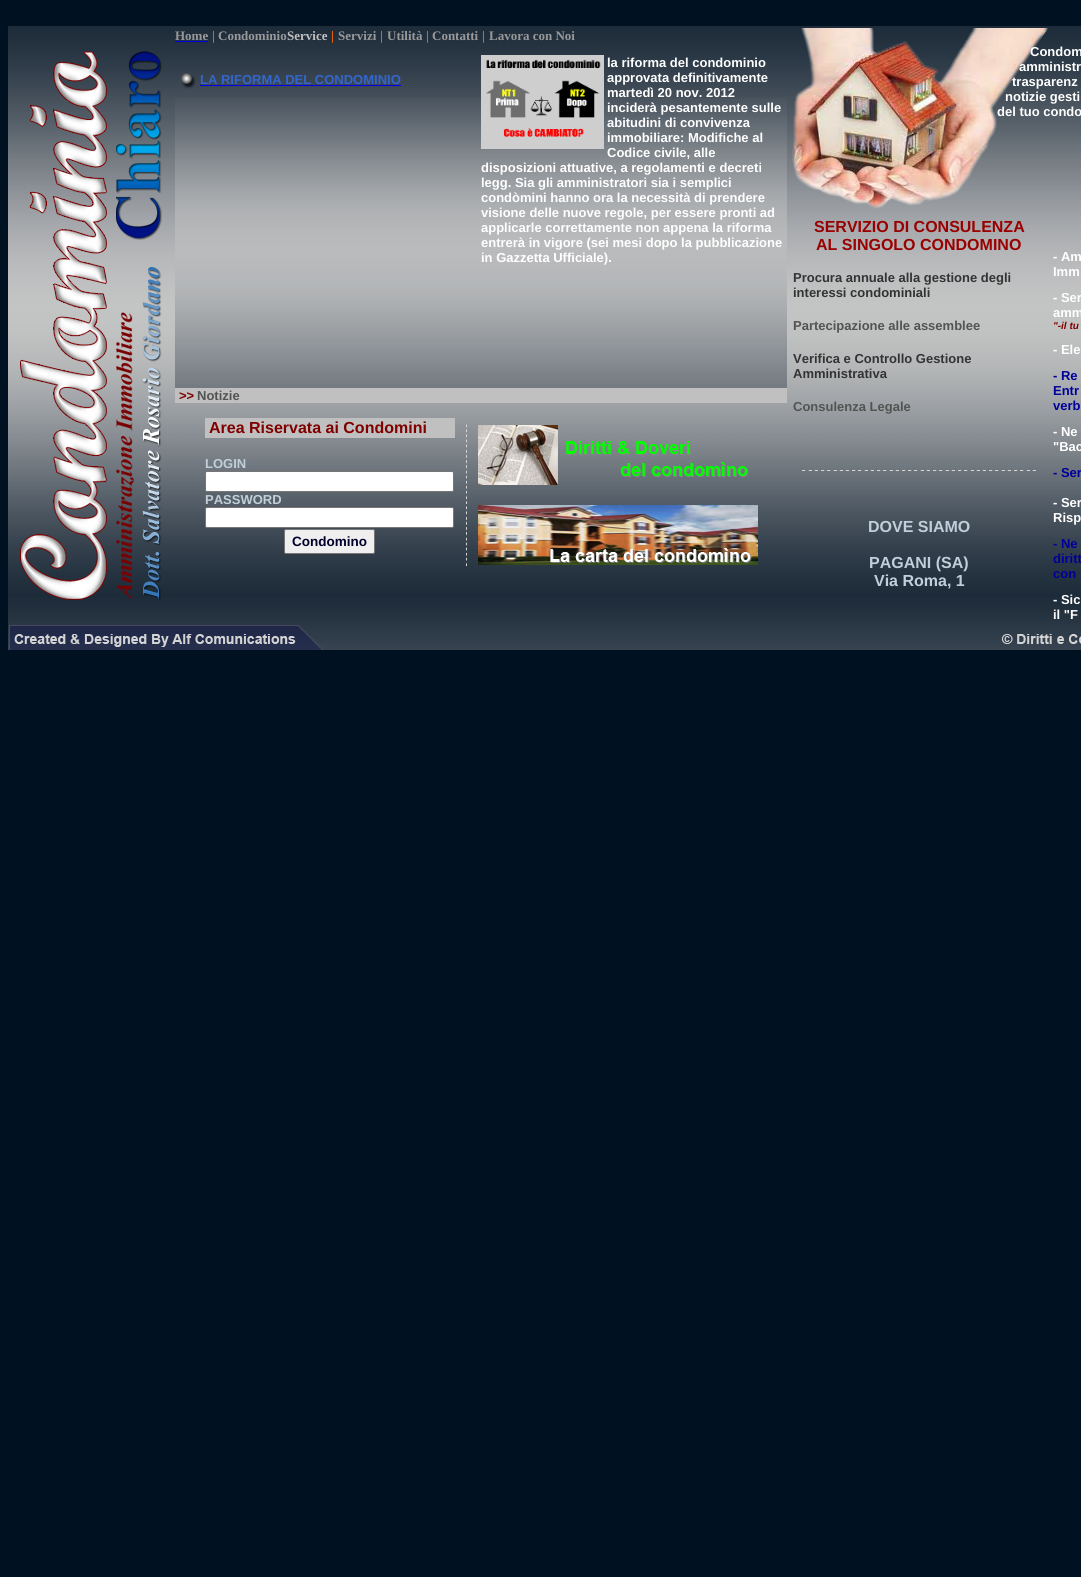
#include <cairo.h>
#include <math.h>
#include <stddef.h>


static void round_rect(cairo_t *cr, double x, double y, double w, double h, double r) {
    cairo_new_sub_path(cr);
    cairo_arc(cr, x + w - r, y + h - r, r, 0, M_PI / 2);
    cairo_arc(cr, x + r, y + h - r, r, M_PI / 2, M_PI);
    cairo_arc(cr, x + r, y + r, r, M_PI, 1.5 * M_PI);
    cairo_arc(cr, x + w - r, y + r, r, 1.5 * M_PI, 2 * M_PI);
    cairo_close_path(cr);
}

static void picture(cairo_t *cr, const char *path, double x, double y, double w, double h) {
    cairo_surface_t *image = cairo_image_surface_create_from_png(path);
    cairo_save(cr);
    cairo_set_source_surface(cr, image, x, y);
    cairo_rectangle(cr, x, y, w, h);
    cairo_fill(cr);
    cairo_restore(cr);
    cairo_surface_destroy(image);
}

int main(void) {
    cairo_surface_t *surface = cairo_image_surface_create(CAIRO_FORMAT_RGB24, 1081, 1577);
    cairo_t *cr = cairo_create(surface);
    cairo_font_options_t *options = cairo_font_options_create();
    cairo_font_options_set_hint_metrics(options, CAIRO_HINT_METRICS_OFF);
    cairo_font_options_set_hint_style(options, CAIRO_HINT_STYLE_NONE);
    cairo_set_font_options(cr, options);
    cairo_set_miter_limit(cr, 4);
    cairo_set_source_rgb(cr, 0, 0.067, 0.133);
    cairo_paint(cr);
    picture(cr, "img1.png", 8, 26, 1073, 624);
    picture(cr, "img2.png", 20, 51, 142, 549);
    cairo_select_font_face(cr, "Liberation Serif", CAIRO_FONT_SLANT_NORMAL, CAIRO_FONT_WEIGHT_BOLD);
    cairo_set_font_size(cr, 13);
    cairo_set_source_rgb(cr, 0.6, 0.6, 0.6);
    cairo_move_to(cr, 175, 40);
    cairo_show_text(cr, "Home");
    cairo_set_source_rgb(cr, 0, 0, 0.933);
    cairo_rectangle(cr, 175, 41, 33, 1);
    cairo_fill(cr);
    cairo_set_source_rgb(cr, 1, 0.4, 0);
    cairo_move_to(cr, 212, 40);
    cairo_show_text(cr, "|");
    cairo_set_source_rgb(cr, 0.6, 0.6, 0.6);
    cairo_move_to(cr, 218, 40);
    cairo_show_text(cr, "Condominio");
    cairo_set_source_rgb(cr, 0.753, 0.753, 0.753);
    cairo_move_to(cr, 287, 40);
    cairo_show_text(cr, "Service");
    cairo_set_source_rgb(cr, 1, 0.4, 0);
    cairo_move_to(cr, 331, 40);
    cairo_show_text(cr, "|");
    cairo_set_source_rgb(cr, 0.6, 0.6, 0.6);
    cairo_move_to(cr, 338, 40);
    cairo_show_text(cr, "Servizi");
    cairo_set_source_rgb(cr, 1, 0.4, 0);
    cairo_move_to(cr, 380, 40);
    cairo_show_text(cr, "|");
    cairo_set_source_rgb(cr, 0.6, 0.6, 0.6);
    cairo_move_to(cr, 387, 40);
    cairo_show_text(cr, "Utilità");
    cairo_set_source_rgb(cr, 1, 0.4, 0);
    cairo_move_to(cr, 426, 40);
    cairo_show_text(cr, "|");
    cairo_set_source_rgb(cr, 0.6, 0.6, 0.6);
    cairo_move_to(cr, 432, 40);
    cairo_show_text(cr, "Contatti");
    cairo_set_source_rgb(cr, 1, 0.4, 0);
    cairo_move_to(cr, 482, 40);
    cairo_show_text(cr, "|");
    cairo_set_source_rgb(cr, 0.6, 0.6, 0.6);
    cairo_move_to(cr, 489, 40);
    cairo_show_text(cr, "Lavora con Noi");
    picture(cr, "img3.png", 175, 98, 612, 290);
    picture(cr, "img4.png", 181, 73, 15, 16);
    cairo_select_font_face(cr, "Liberation Sans", CAIRO_FONT_SLANT_NORMAL, CAIRO_FONT_WEIGHT_BOLD);
    cairo_set_source_rgb(cr, 0.2, 0.4, 0.8);
    cairo_move_to(cr, 200, 84);
    cairo_show_text(cr, "LA RIFORMA DEL CONDOMINIO");
    cairo_set_source_rgb(cr, 0, 0, 0.933);
    cairo_rectangle(cr, 200, 85, 201, 1);
    cairo_fill(cr);
    picture(cr, "img5.png", 481, 55, 123, 94);
    cairo_set_source_rgb(cr, 1, 1, 1);
    cairo_move_to(cr, 607, 67);
    cairo_show_text(cr, "la riforma del condominio");
    cairo_move_to(cr, 607, 82);
    cairo_show_text(cr, "approvata definitivamente");
    cairo_move_to(cr, 607, 97);
    cairo_show_text(cr, "martedì 20 nov. 2012");
    cairo_move_to(cr, 607, 112);
    cairo_show_text(cr, "inciderà pesantemente sulle");
    cairo_move_to(cr, 607, 127);
    cairo_show_text(cr, "abitudini di convivenza");
    cairo_move_to(cr, 607, 142);
    cairo_show_text(cr, "immobiliare: Modifiche al");
    cairo_move_to(cr, 607, 157);
    cairo_show_text(cr, "Codice civile, alle");
    cairo_move_to(cr, 481, 172);
    cairo_show_text(cr, "disposizioni attuative, a regolamenti e decreti");
    cairo_move_to(cr, 481, 187);
    cairo_show_text(cr, "legg. Sia gli amministratori sia i semplici");
    cairo_move_to(cr, 481, 202);
    cairo_show_text(cr, "condòmini hanno ora la necessità di prendere");
    cairo_move_to(cr, 481, 217);
    cairo_show_text(cr, "visione delle nuove regole, per essere pronti ad");
    cairo_move_to(cr, 481, 232);
    cairo_show_text(cr, "applicarle correttamente non appena la riforma");
    cairo_move_to(cr, 481, 247);
    cairo_show_text(cr, "entrerà in vigore (sei mesi dopo la pubblicazione");
    cairo_move_to(cr, 481, 262);
    cairo_show_text(cr, "in Gazzetta Ufficiale).");
    cairo_set_source_rgb(cr, 0.753, 0.753, 0.753);
    cairo_rectangle(cr, 175, 388, 612, 15);
    cairo_fill(cr);
    cairo_set_source_rgb(cr, 0.502, 0, 0);
    cairo_move_to(cr, 179, 400);
    cairo_show_text(cr, ">>");
    cairo_set_source_rgb(cr, 0.325, 0.325, 0.325);
    cairo_move_to(cr, 197, 400);
    cairo_show_text(cr, "Notizie");
    cairo_set_source_rgb(cr, 0.753, 0.753, 0.753);
    cairo_rectangle(cr, 205, 418, 250, 20);
    cairo_fill(cr);
    cairo_set_font_size(cr, 16);
    cairo_set_source_rgb(cr, 0.502, 0, 0);
    cairo_move_to(cr, 209, 433);
    cairo_show_text(cr, "Area Riservata ai Condomini");
    cairo_set_font_size(cr, 13);
    cairo_set_source_rgb(cr, 0.753, 0.812, 0.851);
    cairo_move_to(cr, 205, 468);
    cairo_show_text(cr, "LOGIN");
    cairo_set_source_rgb(cr, 1, 1, 1);
    round_rect(cr, 205.5, 471.5, 248, 20, 1.5);
    cairo_fill_preserve(cr);
    cairo_set_source_rgb(cr, 0.463, 0.463, 0.463);
    cairo_set_line_width(cr, 1);
    cairo_stroke(cr);
    cairo_set_source_rgb(cr, 0.753, 0.812, 0.851);
    cairo_move_to(cr, 205, 504);
    cairo_show_text(cr, "PASSWORD");
    cairo_set_source_rgb(cr, 1, 1, 1);
    round_rect(cr, 205.5, 507.5, 248, 20, 1.5);
    cairo_fill_preserve(cr);
    cairo_set_source_rgb(cr, 0.463, 0.463, 0.463);
    cairo_stroke(cr);
    cairo_set_source_rgb(cr, 0.937, 0.937, 0.937);
    round_rect(cr, 284.5, 529.5, 90, 24, 1.5);
    cairo_fill_preserve(cr);
    cairo_set_source_rgb(cr, 0.463, 0.463, 0.463);
    cairo_stroke(cr);
    cairo_set_font_size(cr, 13.5);
    cairo_set_source_rgb(cr, 0, 0, 0.169);
    cairo_move_to(cr, 292, 546);
    cairo_show_text(cr, "Condomino");
    picture(cr, "img6.png", 466, 424, 1, 142);
    picture(cr, "img7.png", 478, 425, 271, 60);
    picture(cr, "img8.png", 478, 505, 280, 60);
    picture(cr, "img9.png", 792, 28, 256, 181);
    cairo_set_font_size(cr, 13);
    cairo_set_source_rgb(cr, 1, 1, 1);
    cairo_move_to(cr, 1030, 56);
    cairo_show_text(cr, "Condom");
    cairo_move_to(cr, 1019, 71);
    cairo_show_text(cr, "amministr");
    cairo_move_to(cr, 1012, 86);
    cairo_show_text(cr, "trasparenz");
    cairo_move_to(cr, 1005, 101);
    cairo_show_text(cr, "notizie gesti");
    cairo_move_to(cr, 997, 116);
    cairo_show_text(cr, "del tuo condo");
    cairo_set_font_size(cr, 16);
    cairo_set_source_rgb(cr, 0.6, 0, 0);
    cairo_move_to(cr, 814, 232);
    cairo_show_text(cr, "SERVIZIO DI CONSULENZA");
    cairo_move_to(cr, 816, 250);
    cairo_show_text(cr, "AL SINGOLO CONDOMINO");
    cairo_set_font_size(cr, 13);
    cairo_set_source_rgb(cr, 0.2, 0.2, 0.2);
    cairo_move_to(cr, 793, 282);
    cairo_show_text(cr, "Procura annuale alla gestione degli");
    cairo_move_to(cr, 793, 297);
    cairo_show_text(cr, "interessi condominiali");
    cairo_set_source_rgb(cr, 0.325, 0.325, 0.325);
    cairo_move_to(cr, 793, 330);
    cairo_show_text(cr, "Partecipazione alle assemblee");
    cairo_set_source_rgb(cr, 0.2, 0.2, 0.2);
    cairo_move_to(cr, 793, 363);
    cairo_show_text(cr, "Verifica e Controllo Gestione");
    cairo_move_to(cr, 793, 378);
    cairo_show_text(cr, "Amministrativa");
    cairo_set_source_rgb(cr, 0.325, 0.325, 0.325);
    cairo_move_to(cr, 793, 411);
    cairo_show_text(cr, "Consulenza Legale");
    cairo_set_source_rgb(cr, 1, 1, 1);
    cairo_move_to(cr, 1053, 261);
    cairo_show_text(cr, "- Am");
    cairo_move_to(cr, 1053, 276);
    cairo_show_text(cr, "Imm");
    cairo_move_to(cr, 1053, 302);
    cairo_show_text(cr, "- Ser");
    cairo_move_to(cr, 1053, 317);
    cairo_show_text(cr, "amm");
    cairo_select_font_face(cr, "Liberation Sans", CAIRO_FONT_SLANT_ITALIC, CAIRO_FONT_WEIGHT_BOLD);
    cairo_set_font_size(cr, 10);
    cairo_set_source_rgb(cr, 0.502, 0, 0);
    cairo_move_to(cr, 1053, 329);
    cairo_show_text(cr, "\"-il tu");
    cairo_select_font_face(cr, "Liberation Sans", CAIRO_FONT_SLANT_NORMAL, CAIRO_FONT_WEIGHT_BOLD);
    cairo_set_font_size(cr, 13);
    cairo_set_source_rgb(cr, 1, 1, 1);
    cairo_move_to(cr, 1053, 354);
    cairo_show_text(cr, "- Ele");
    cairo_set_source_rgb(cr, 0, 0, 0.6);
    cairo_move_to(cr, 1053, 380);
    cairo_show_text(cr, "- Re");
    cairo_move_to(cr, 1053, 395);
    cairo_show_text(cr, "Entr");
    cairo_move_to(cr, 1053, 410);
    cairo_show_text(cr, "verb");
    cairo_set_source_rgb(cr, 1, 1, 1);
    cairo_move_to(cr, 1053, 436);
    cairo_show_text(cr, "- Ne");
    cairo_move_to(cr, 1053, 451);
    cairo_show_text(cr, "\"Bac");
    cairo_set_source_rgb(cr, 0, 0, 0.6);
    cairo_move_to(cr, 1053, 477);
    cairo_show_text(cr, "- Ser");
    cairo_set_source_rgb(cr, 1, 1, 1);
    cairo_move_to(cr, 1053, 507);
    cairo_show_text(cr, "- Ser");
    cairo_move_to(cr, 1053, 522);
    cairo_show_text(cr, "Risp");
    cairo_set_source_rgb(cr, 0, 0, 0.6);
    cairo_move_to(cr, 1053, 548);
    cairo_show_text(cr, "- Ne");
    cairo_move_to(cr, 1053, 563);
    cairo_show_text(cr, "diritt");
    cairo_move_to(cr, 1053, 578);
    cairo_show_text(cr, "con");
    cairo_set_source_rgb(cr, 1, 1, 1);
    cairo_move_to(cr, 1053, 604);
    cairo_show_text(cr, "- Sic");
    cairo_move_to(cr, 1053, 619);
    cairo_show_text(cr, "il \"F");
    picture(cr, "img10.png", 802, 470, 234, 1);
    cairo_set_font_size(cr, 16);
    cairo_set_source_rgb(cr, 0.753, 0.812, 0.851);
    cairo_move_to(cr, 868, 532);
    cairo_show_text(cr, "DOVE SIAMO");
    cairo_move_to(cr, 869, 568);
    cairo_show_text(cr, "PAGANI (SA)");
    cairo_move_to(cr, 874, 586);
    cairo_show_text(cr, "Via Roma, 1");
    picture(cr, "img11.png", 9, 625, 314, 25);
    picture(cr, "img12.png", 1001, 634, 80, 10);
    cairo_surface_write_to_png(surface, "page.png");
    cairo_font_options_destroy(options);
    cairo_destroy(cr);
    cairo_surface_destroy(surface);
    return 0;
}
